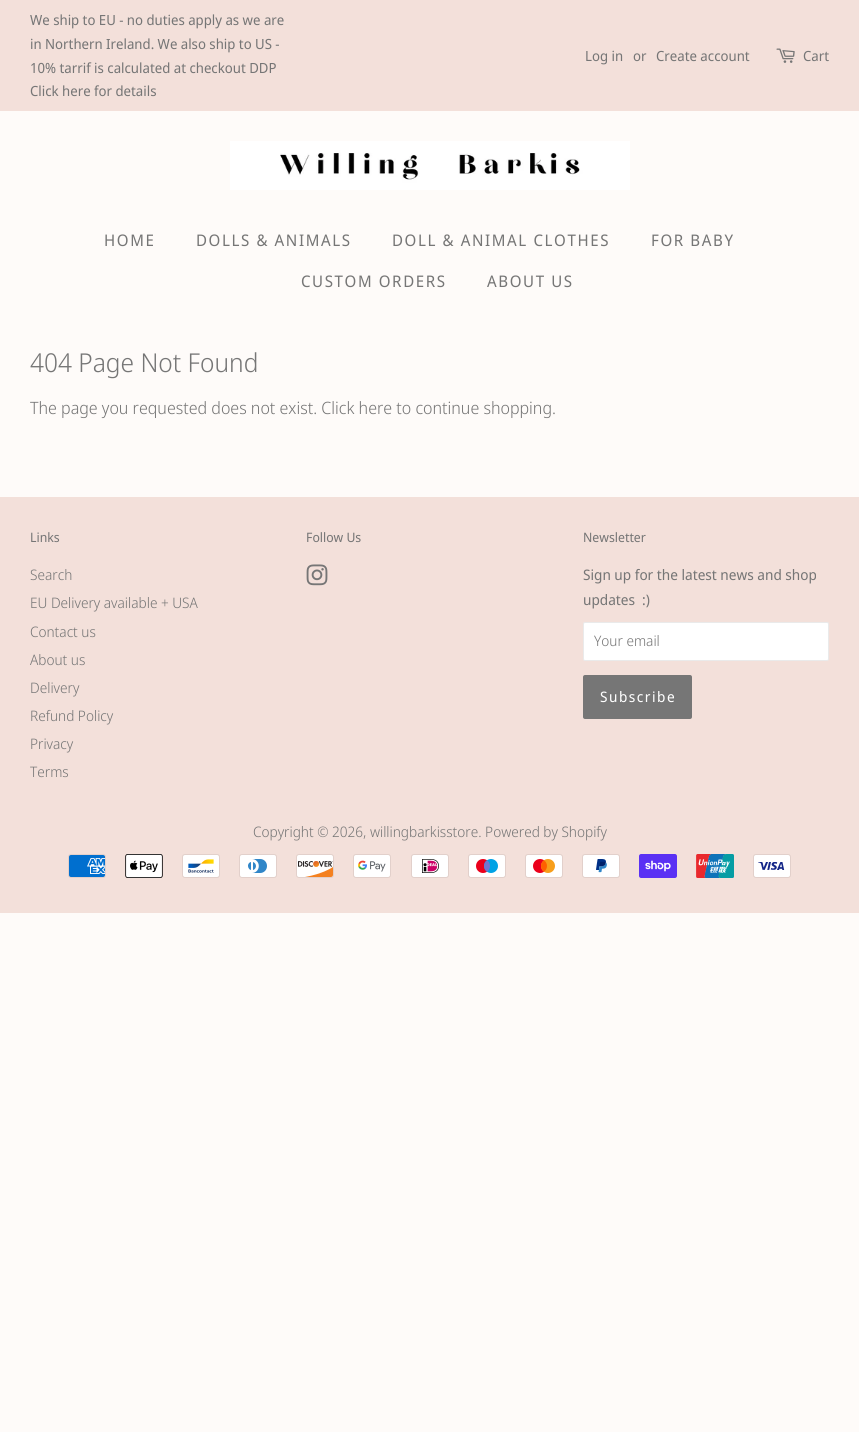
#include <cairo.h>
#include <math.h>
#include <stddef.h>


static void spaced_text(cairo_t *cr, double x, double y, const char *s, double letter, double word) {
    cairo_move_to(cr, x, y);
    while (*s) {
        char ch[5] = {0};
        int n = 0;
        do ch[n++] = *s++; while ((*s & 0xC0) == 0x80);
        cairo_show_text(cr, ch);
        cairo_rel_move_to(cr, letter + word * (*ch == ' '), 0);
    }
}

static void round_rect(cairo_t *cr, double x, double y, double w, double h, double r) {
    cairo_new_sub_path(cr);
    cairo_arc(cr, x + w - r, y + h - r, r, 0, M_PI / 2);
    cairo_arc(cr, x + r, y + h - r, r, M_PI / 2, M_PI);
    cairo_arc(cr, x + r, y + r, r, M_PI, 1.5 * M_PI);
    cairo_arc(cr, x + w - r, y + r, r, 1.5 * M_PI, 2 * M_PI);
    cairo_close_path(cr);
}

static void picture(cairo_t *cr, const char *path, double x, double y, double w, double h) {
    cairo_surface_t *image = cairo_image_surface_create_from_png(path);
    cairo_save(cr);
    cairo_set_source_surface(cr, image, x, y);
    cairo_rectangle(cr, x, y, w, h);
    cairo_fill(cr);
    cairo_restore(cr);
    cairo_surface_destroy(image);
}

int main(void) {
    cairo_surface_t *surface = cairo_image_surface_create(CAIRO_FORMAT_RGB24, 859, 1432);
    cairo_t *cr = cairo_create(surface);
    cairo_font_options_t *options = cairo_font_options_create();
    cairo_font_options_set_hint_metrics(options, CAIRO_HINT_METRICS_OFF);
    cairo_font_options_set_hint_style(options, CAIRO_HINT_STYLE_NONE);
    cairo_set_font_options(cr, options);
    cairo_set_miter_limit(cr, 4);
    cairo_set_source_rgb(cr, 0.996, 0.984, 0.976);
    cairo_paint(cr);
    cairo_set_source_rgb(cr, 0.953, 0.878, 0.855);
    cairo_rectangle(cr, 0, 0, 859, 111);
    cairo_fill(cr);
    cairo_select_font_face(cr, "Noto Sans Display", CAIRO_FONT_SLANT_NORMAL, CAIRO_FONT_WEIGHT_NORMAL);
    cairo_set_font_size(cr, 14);
    cairo_set_source_rgb(cr, 0.463, 0.463, 0.463);
    cairo_move_to(cr, 30, 25);
    cairo_show_text(cr, "We ship to EU - no duties apply as we are");
    cairo_move_to(cr, 30, 49);
    cairo_show_text(cr, "in Northern Ireland. We also ship to US -");
    cairo_move_to(cr, 30, 73);
    cairo_show_text(cr, "10% tarrif is calculated at checkout DDP");
    cairo_move_to(cr, 30, 96);
    cairo_show_text(cr, "Click here for details");
    cairo_move_to(cr, 585, 61);
    cairo_show_text(cr, "Log in");
    cairo_move_to(cr, 633, 61);
    cairo_show_text(cr, "or");
    cairo_move_to(cr, 656, 61);
    cairo_show_text(cr, "Create account");
    picture(cr, "img1.png", 776, 48, 19, 15);
    cairo_move_to(cr, 803, 61);
    cairo_show_text(cr, "Cart");
    picture(cr, "img2.png", 230, 141, 400, 49);
    cairo_set_font_size(cr, 16);
    spaced_text(cr, 104, 246, "HOME", 1.6, 0);
    spaced_text(cr, 196, 246, "DOLLS & ANIMALS", 1.6, 0);
    spaced_text(cr, 392, 246, "DOLL & ANIMAL CLOTHES", 1.6, 0);
    spaced_text(cr, 651, 246, "FOR BABY", 1.6, 0);
    spaced_text(cr, 301, 287, "CUSTOM ORDERS", 1.6, 0);
    spaced_text(cr, 487, 287, "ABOUT US", 1.6, 0);
    cairo_select_font_face(cr, "Noto Sans Display Light", CAIRO_FONT_SLANT_NORMAL, CAIRO_FONT_WEIGHT_NORMAL);
    cairo_set_font_size(cr, 26);
    cairo_move_to(cr, 30, 372);
    cairo_show_text(cr, "404 Page Not Found");
    cairo_set_font_size(cr, 17);
    cairo_move_to(cr, 30, 414);
    cairo_show_text(cr, "The page you requested does not exist. Click here to continue shopping.");
    cairo_set_source_rgb(cr, 0.953, 0.878, 0.855);
    cairo_rectangle(cr, 0, 497, 859, 416);
    cairo_fill(cr);
    cairo_select_font_face(cr, "Noto Sans Display", CAIRO_FONT_SLANT_NORMAL, CAIRO_FONT_WEIGHT_NORMAL);
    cairo_set_font_size(cr, 13);
    cairo_set_source_rgb(cr, 0.463, 0.463, 0.463);
    cairo_move_to(cr, 30, 542);
    cairo_show_text(cr, "Links");
    cairo_select_font_face(cr, "Noto Sans Display Light", CAIRO_FONT_SLANT_NORMAL, CAIRO_FONT_WEIGHT_NORMAL);
    cairo_set_font_size(cr, 14.45);
    cairo_move_to(cr, 30, 580);
    cairo_show_text(cr, "Search");
    cairo_move_to(cr, 30, 608);
    cairo_show_text(cr, "EU Delivery available + USA");
    cairo_move_to(cr, 30, 637);
    cairo_show_text(cr, "Contact us");
    cairo_move_to(cr, 30, 665);
    cairo_show_text(cr, "About us");
    cairo_move_to(cr, 30, 693);
    cairo_show_text(cr, "Delivery");
    cairo_move_to(cr, 30, 721);
    cairo_show_text(cr, "Refund Policy");
    cairo_move_to(cr, 30, 749);
    cairo_show_text(cr, "Privacy");
    cairo_move_to(cr, 30, 777);
    cairo_show_text(cr, "Terms");
    cairo_select_font_face(cr, "Noto Sans Display", CAIRO_FONT_SLANT_NORMAL, CAIRO_FONT_WEIGHT_NORMAL);
    cairo_set_font_size(cr, 13);
    cairo_move_to(cr, 306, 542);
    cairo_show_text(cr, "Follow Us");
    picture(cr, "img3.png", 306, 564, 22, 22);
    cairo_move_to(cr, 583, 542);
    cairo_show_text(cr, "Newsletter");
    cairo_set_font_size(cr, 14.45);
    cairo_move_to(cr, 583, 580);
    cairo_show_text(cr, "Sign up for the latest news and shop");
    cairo_move_to(cr, 583, 605);
    cairo_show_text(cr, "updates  :)");
    cairo_set_source_rgb(cr, 1, 1, 1);
    round_rect(cr, 583, 622, 246, 39, 2);
    cairo_fill(cr);
    round_rect(cr, 583.5, 622.5, 245, 38, 1.5);
    cairo_set_source_rgba(cr, 0.463, 0.463, 0.463, 0.15);
    cairo_set_line_width(cr, 1);
    cairo_stroke(cr);
    cairo_select_font_face(cr, "Noto Sans Display Light", CAIRO_FONT_SLANT_NORMAL, CAIRO_FONT_WEIGHT_NORMAL);
    cairo_set_source_rgb(cr, 0.463, 0.463, 0.463);
    cairo_move_to(cr, 594, 646);
    cairo_show_text(cr, "Your email");
    round_rect(cr, 583, 675, 109, 44, 2);
    cairo_fill(cr);
    cairo_select_font_face(cr, "Noto Sans Display", CAIRO_FONT_SLANT_NORMAL, CAIRO_FONT_WEIGHT_NORMAL);
    cairo_set_source_rgb(cr, 1, 1, 1);
    spaced_text(cr, 600, 702, "Subscribe", 1.5, 0);
    cairo_select_font_face(cr, "Noto Sans Display Light", CAIRO_FONT_SLANT_NORMAL, CAIRO_FONT_WEIGHT_NORMAL);
    cairo_set_source_rgb(cr, 0.463, 0.463, 0.463);
    cairo_move_to(cr, 253, 837);
    cairo_show_text(cr, "Copyright © 2026, willingbarkisstore. Powered by Shopify");
    picture(cr, "img4.png", 68, 854, 38, 24);
    picture(cr, "img5.png", 125, 854, 38, 24);
    picture(cr, "img6.png", 182, 854, 38, 24);
    picture(cr, "img7.png", 239, 854, 38, 24);
    picture(cr, "img8.png", 296, 854, 38, 24);
    picture(cr, "img9.png", 353, 854, 38, 24);
    picture(cr, "img10.png", 411, 854, 38, 24);
    picture(cr, "img11.png", 468, 854, 38, 24);
    picture(cr, "img12.png", 525, 854, 38, 24);
    picture(cr, "img13.png", 582, 854, 38, 24);
    picture(cr, "img14.png", 639, 854, 38, 24);
    picture(cr, "img15.png", 696, 854, 38, 24);
    picture(cr, "img16.png", 753, 854, 38, 24);
    cairo_surface_write_to_png(surface, "page.png");
    cairo_font_options_destroy(options);
    cairo_destroy(cr);
    cairo_surface_destroy(surface);
    return 0;
}
